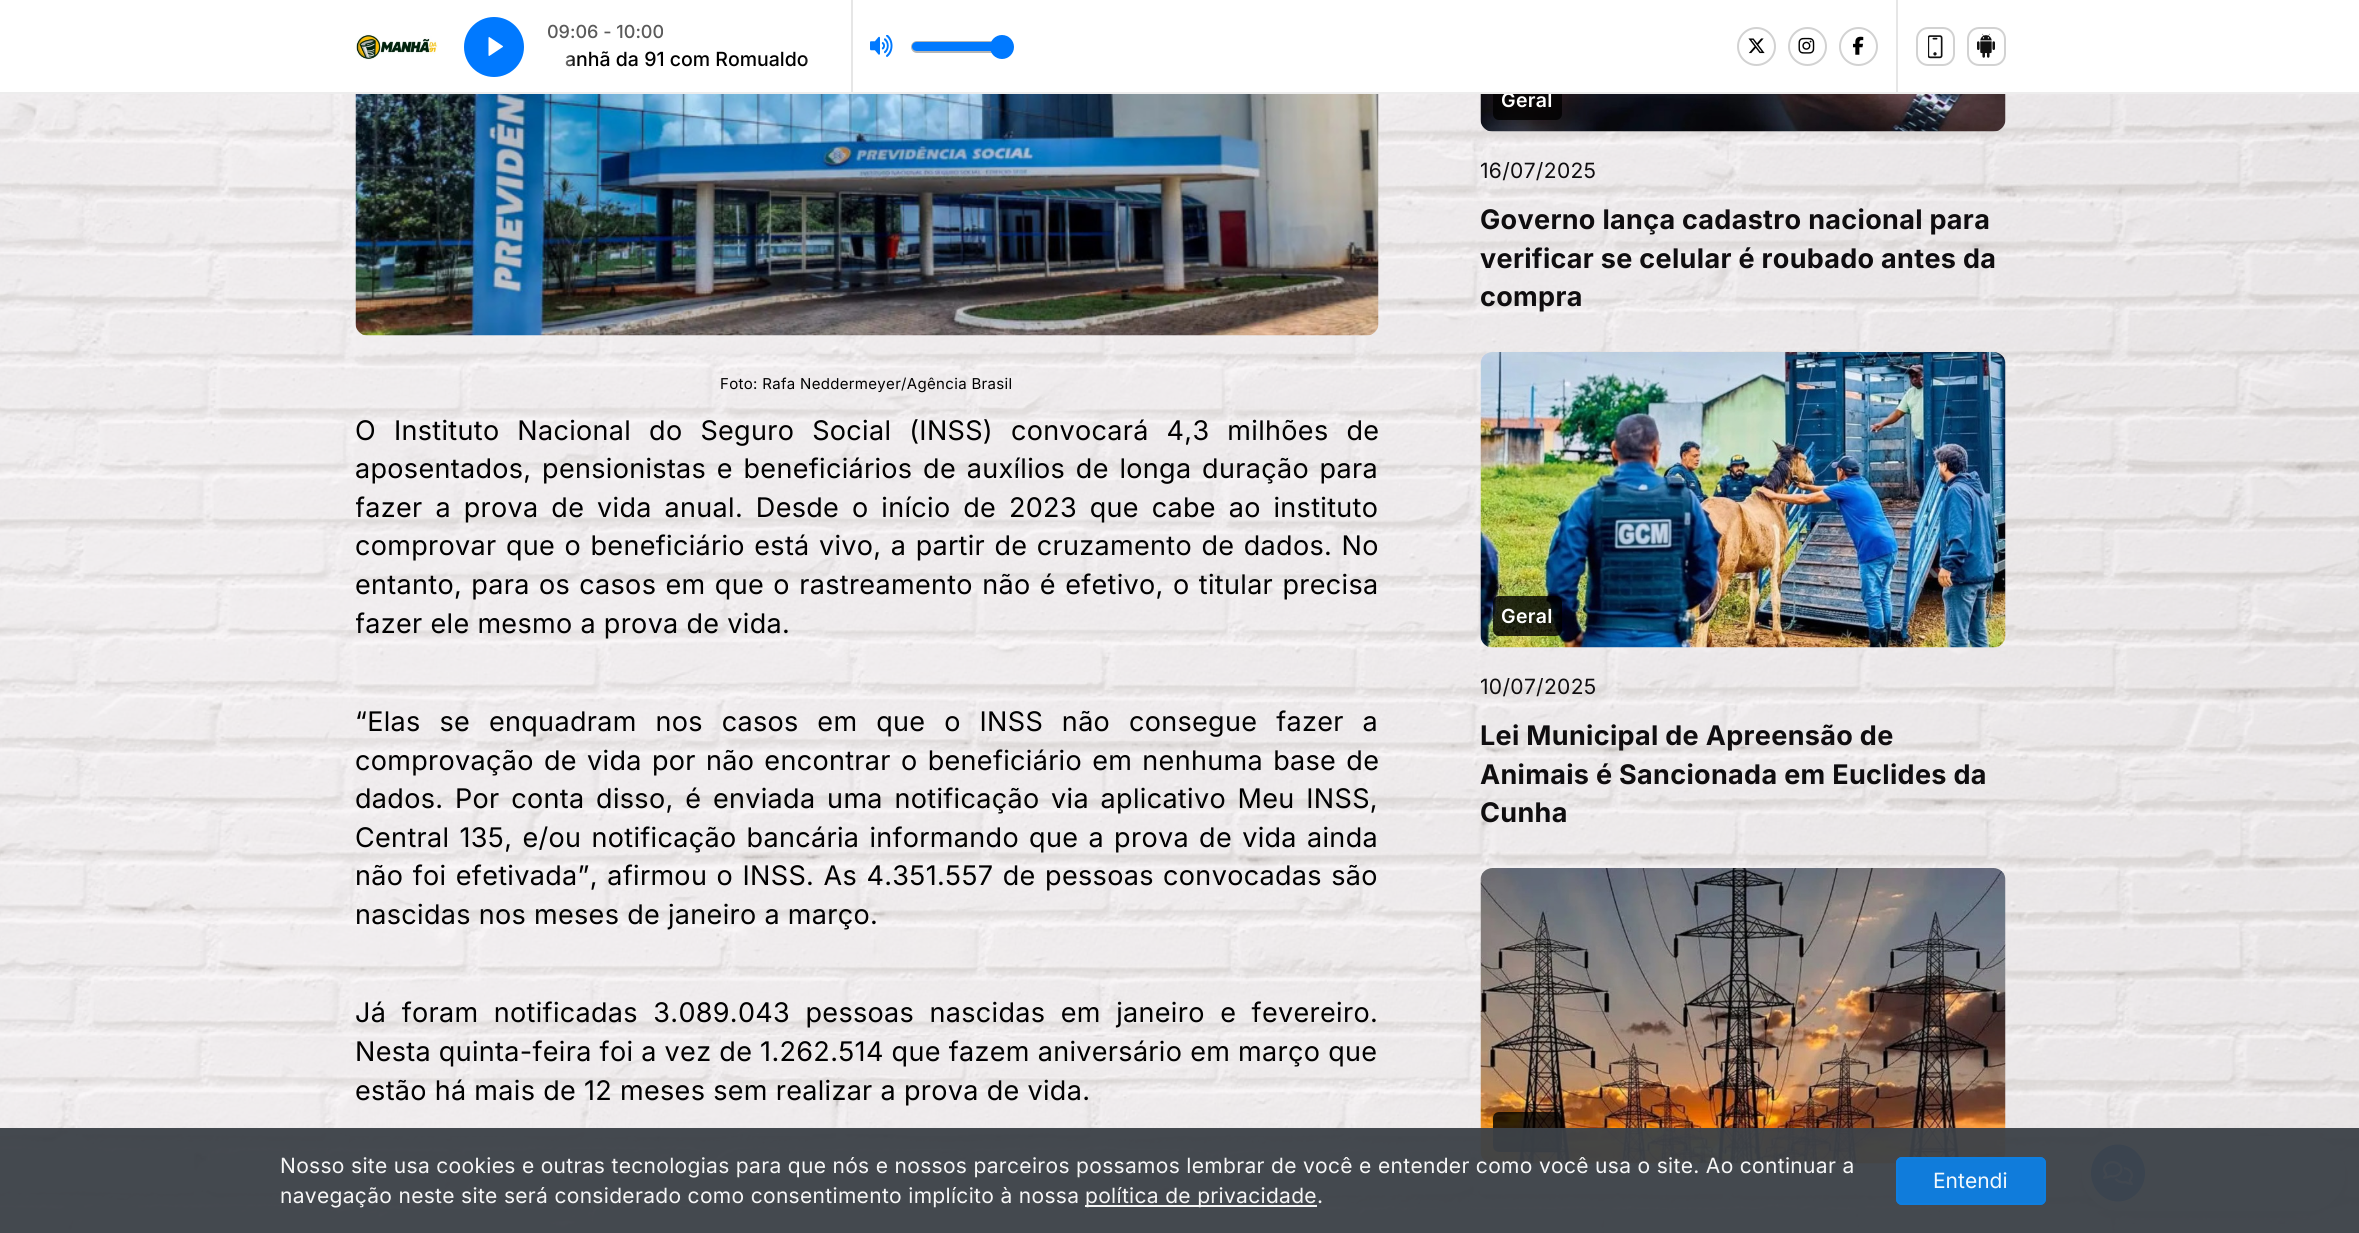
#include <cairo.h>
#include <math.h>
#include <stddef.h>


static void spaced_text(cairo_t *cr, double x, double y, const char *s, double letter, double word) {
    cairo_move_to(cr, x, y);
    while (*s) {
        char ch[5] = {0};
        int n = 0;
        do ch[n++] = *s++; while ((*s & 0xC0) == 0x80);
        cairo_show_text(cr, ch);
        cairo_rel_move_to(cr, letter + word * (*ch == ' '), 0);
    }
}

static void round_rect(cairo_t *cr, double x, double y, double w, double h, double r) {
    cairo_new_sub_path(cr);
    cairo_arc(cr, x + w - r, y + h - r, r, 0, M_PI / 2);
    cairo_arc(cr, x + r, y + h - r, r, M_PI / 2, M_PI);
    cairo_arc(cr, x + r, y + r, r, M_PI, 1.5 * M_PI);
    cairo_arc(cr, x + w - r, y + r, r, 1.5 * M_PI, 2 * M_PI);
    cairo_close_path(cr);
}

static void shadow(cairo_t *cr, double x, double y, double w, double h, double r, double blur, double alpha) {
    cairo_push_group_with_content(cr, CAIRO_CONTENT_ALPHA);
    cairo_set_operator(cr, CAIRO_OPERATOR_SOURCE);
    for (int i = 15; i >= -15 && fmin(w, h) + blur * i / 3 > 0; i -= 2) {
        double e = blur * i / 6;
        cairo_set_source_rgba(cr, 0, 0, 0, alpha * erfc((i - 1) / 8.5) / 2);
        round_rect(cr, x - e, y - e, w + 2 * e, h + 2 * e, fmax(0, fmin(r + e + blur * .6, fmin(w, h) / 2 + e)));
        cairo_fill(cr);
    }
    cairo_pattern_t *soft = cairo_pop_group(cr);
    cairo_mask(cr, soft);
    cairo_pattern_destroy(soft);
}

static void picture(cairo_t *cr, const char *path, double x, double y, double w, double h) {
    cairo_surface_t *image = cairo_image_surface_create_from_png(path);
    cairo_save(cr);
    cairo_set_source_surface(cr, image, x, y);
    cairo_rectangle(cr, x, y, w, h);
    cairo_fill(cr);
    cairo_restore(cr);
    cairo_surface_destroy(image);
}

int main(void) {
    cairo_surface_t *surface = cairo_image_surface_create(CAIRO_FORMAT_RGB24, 2359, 1233);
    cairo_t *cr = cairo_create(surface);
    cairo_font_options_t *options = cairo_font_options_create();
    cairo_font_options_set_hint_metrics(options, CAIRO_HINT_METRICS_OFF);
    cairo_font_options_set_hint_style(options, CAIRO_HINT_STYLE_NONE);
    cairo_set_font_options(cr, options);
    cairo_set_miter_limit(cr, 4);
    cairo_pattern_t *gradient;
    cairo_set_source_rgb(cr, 0.969, 0.957, 0.969);
    cairo_paint(cr);
    picture(cr, "img13.png", 0, 94, 2359, 1139);
    picture(cr, "img10.png", 1480, 94, 526, 38);
    cairo_set_source_rgba(cr, 0, 0, 0, 0.8);
    round_rect(cr, 1493, 80, 69, 40, 6);
    cairo_fill(cr);
    cairo_set_source_rgb(cr, 1, 1, 1);
    cairo_rectangle(cr, 0, 0, 2359, 92);
    cairo_fill(cr);
    cairo_select_font_face(cr, "Inter SemiBold", CAIRO_FONT_SLANT_NORMAL, CAIRO_FONT_WEIGHT_NORMAL);
    cairo_set_font_size(cr, 19.5);
    spaced_text(cr, 1501, 107, "Geral", 0.32, 0);
    cairo_set_source_rgb(cr, 0.929, 0.929, 0.929);
    cairo_rectangle(cr, 0, 92, 2359, 2);
    cairo_fill(cr);
    cairo_set_source_rgb(cr, 0.902, 0.902, 0.902);
    cairo_rectangle(cr, 851, 0, 2, 92);
    cairo_fill(cr);
    picture(cr, "img1.png", 355, 34, 83, 26);
    cairo_set_source_rgb(cr, 0, 0.475, 1);
    cairo_arc(cr, 494, 47, 30, 0, 2 * M_PI);
    cairo_fill(cr);
    picture(cr, "img2.png", 488, 37, 15, 19);
    cairo_save(cr);
    cairo_rectangle(cr, 548, 20, 285, 25);
    cairo_clip(cr);
    cairo_select_font_face(cr, "Inter Medium", CAIRO_FONT_SLANT_NORMAL, CAIRO_FONT_WEIGHT_NORMAL);
    cairo_set_font_size(cr, 18);
    cairo_set_source_rgb(cr, 0.353, 0.353, 0.353);
    cairo_move_to(cr, 547, 38);
    cairo_show_text(cr, "09:06 - 10:00");
    cairo_restore(cr);
    cairo_select_font_face(cr, "Inter Medium", CAIRO_FONT_SLANT_NORMAL, CAIRO_FONT_WEIGHT_NORMAL);
    cairo_set_source_rgb(cr, 0, 0, 0);
    cairo_move_to(cr, 565, 66);
    cairo_show_text(cr, "anhã da 91 com Romualdo");
    gradient = cairo_pattern_create_linear(548, 59, 576, 59);
    cairo_pattern_add_color_stop_rgba(gradient, 0.2, 1, 1, 1, 1);
    cairo_pattern_add_color_stop_rgba(gradient, 1, 1, 1, 1, 0);
    cairo_set_source(cr, gradient);
    cairo_pattern_destroy(gradient);
    cairo_rectangle(cr, 565, 55, 10, 12);
    cairo_fill(cr);
    gradient = cairo_pattern_create_linear(833, 59, 804, 59);
    cairo_pattern_add_color_stop_rgba(gradient, 0.2, 1, 1, 1, 1);
    cairo_pattern_add_color_stop_rgba(gradient, 1, 1, 1, 1, 0);
    cairo_set_source(cr, gradient);
    cairo_pattern_destroy(gradient);
    cairo_rectangle(cr, 805, 56, 3, 9);
    cairo_fill(cr);
    picture(cr, "img3.png", 870, 35, 23, 22);
    round_rect(cr, 912, 42, 91, 10, 5);
    cairo_set_source_rgb(cr, 0.71, 0.71, 0.71);
    cairo_stroke(cr);
    cairo_set_source_rgb(cr, 0, 0.475, 1);
    round_rect(cr, 912, 42, 90, 9, 4.5);
    cairo_fill(cr);
    cairo_arc(cr, 1002, 47, 11, 0, 2 * M_PI);
    cairo_fill_preserve(cr);
    cairo_stroke(cr);
    cairo_arc(cr, 1756.5, 46.5, 18.5, 0, 2 * M_PI);
    cairo_set_source_rgb(cr, 0.824, 0.824, 0.824);
    cairo_stroke(cr);
    picture(cr, "img4.png", 1748, 38, 17, 16);
    cairo_arc(cr, 1807.5, 46.5, 18.5, 0, 2 * M_PI);
    cairo_stroke(cr);
    picture(cr, "img5.png", 1798, 37, 17, 17);
    cairo_arc(cr, 1858.5, 46.5, 18.5, 0, 2 * M_PI);
    cairo_stroke(cr);
    picture(cr, "img6.png", 1853, 36, 11, 19);
    cairo_set_source_rgb(cr, 0.902, 0.902, 0.902);
    cairo_rectangle(cr, 1896, 0, 2, 92);
    cairo_fill(cr);
    round_rect(cr, 1917, 28, 37, 37, 11);
    cairo_set_source_rgb(cr, 0.824, 0.824, 0.824);
    cairo_stroke(cr);
    picture(cr, "img7.png", 1928, 35, 15, 24);
    round_rect(cr, 1968, 28, 37, 37, 11);
    cairo_stroke(cr);
    picture(cr, "img8.png", 1977, 33, 18, 25);
    picture(cr, "img9.png", 355, 94, 1024, 242);
    cairo_select_font_face(cr, "Inter", CAIRO_FONT_SLANT_NORMAL, CAIRO_FONT_WEIGHT_NORMAL);
    cairo_set_font_size(cr, 15);
    cairo_set_source_rgb(cr, 0, 0, 0);
    spaced_text(cr, 720, 389, "Foto: Rafa Neddermeyer/Agência Brasil", 0.32, 0);
    cairo_set_font_size(cr, 27);
    spaced_text(cr, 355, 440, "O Instituto Nacional do Seguro Social (INSS) convocará 4,3 milhões de", 0.32, 10);
    spaced_text(cr, 355, 478, "aposentados, pensionistas e beneficiários de auxílios de longa duração para", 0.32, 2.75);
    cairo_save(cr);
    cairo_rectangle(cr, 356, 366, 1023, 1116);
    cairo_clip(cr);
    spaced_text(cr, 355, 517, "fazer a prova de vida anual. Desde o início de 2023 que cabe ao instituto", 0.32, 4.9);
    cairo_restore(cr);
    spaced_text(cr, 355, 555, "comprovar que o beneficiário está vivo, a partir de cruzamento de dados. No", 0.32, 1.5);
    spaced_text(cr, 355, 594, "entanto, para os casos em que o rastreamento não é efetivo, o titular precisa", 0.32, 1.4);
    cairo_save(cr);
    cairo_rectangle(cr, 356, 366, 1023, 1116);
    cairo_clip(cr);
    spaced_text(cr, 355, 633, "fazer ele mesmo a prova de vida.", 0.32, 0);
    cairo_restore(cr);
    spaced_text(cr, 355, 731, "“Elas se enquadram nos casos em que o INSS não consegue fazer a", 0.32, 10.9);
    spaced_text(cr, 355, 770, "comprovação de vida por não encontrar o beneficiário em nenhuma base de", 0.32, 2.25);
    spaced_text(cr, 355, 808, "dados. Por conta disso, é enviada uma notificação via aplicativo Meu INSS,", 0.32, 3.75);
    spaced_text(cr, 355, 847, "Central 135, e/ou notificação bancária informando que a prova de vida ainda", 0.32, 2.25);
    spaced_text(cr, 355, 885, "não foi efetivada”, afirmou o INSS. As 4.351.557 de pessoas convocadas são", 0.32, 1.5);
    spaced_text(cr, 355, 924, "nascidas nos meses de janeiro a março.", 0.32, 0);
    spaced_text(cr, 355, 1022, "Já foram notificadas 3.089.043 pessoas nascidas em janeiro e fevereiro.", 0.32, 7.5);
    spaced_text(cr, 355, 1061, "Nesta quinta-feira foi a vez de 1.262.514 que fazem aniversário em março que", 0.32, 0);
    spaced_text(cr, 355, 1100, "estão há mais de 12 meses sem realizar a prova de vida.", 0.32, 0);
    cairo_set_font_size(cr, 21);
    cairo_set_source_rgb(cr, 0.059, 0.051, 0.059);
    spaced_text(cr, 1480, 178, "16/07/2025", 0.32, 0);
    cairo_select_font_face(cr, "Inter", CAIRO_FONT_SLANT_NORMAL, CAIRO_FONT_WEIGHT_BOLD);
    cairo_set_font_size(cr, 27);
    spaced_text(cr, 1480, 229, "Governo lança cadastro nacional para", 0.32, 0);
    spaced_text(cr, 1480, 268, "verificar se celular é roubado antes da", 0.32, 0);
    spaced_text(cr, 1480, 306, "compra", 0.32, 0);
    picture(cr, "img11.png", 1480, 352, 526, 296);
    cairo_set_source_rgba(cr, 0, 0, 0, 0.8);
    round_rect(cr, 1493, 596, 69, 40, 6);
    cairo_fill(cr);
    cairo_select_font_face(cr, "Inter SemiBold", CAIRO_FONT_SLANT_NORMAL, CAIRO_FONT_WEIGHT_NORMAL);
    cairo_set_font_size(cr, 19.5);
    cairo_set_source_rgb(cr, 1, 1, 1);
    spaced_text(cr, 1501, 623, "Geral", 0.32, 0);
    cairo_select_font_face(cr, "Inter", CAIRO_FONT_SLANT_NORMAL, CAIRO_FONT_WEIGHT_NORMAL);
    cairo_set_font_size(cr, 21);
    cairo_set_source_rgb(cr, 0.059, 0.051, 0.059);
    spaced_text(cr, 1480, 694, "10/07/2025", 0.32, 0);
    cairo_select_font_face(cr, "Inter", CAIRO_FONT_SLANT_NORMAL, CAIRO_FONT_WEIGHT_BOLD);
    cairo_set_font_size(cr, 27);
    spaced_text(cr, 1480, 745, "Lei Municipal de Apreensão de", 0.32, 0);
    spaced_text(cr, 1480, 784, "Animais é Sancionada em Euclides da", 0.32, 0);
    spaced_text(cr, 1480, 822, "Cunha", 0.32, 0);
    picture(cr, "img12.png", 1480, 868, 526, 296);
    cairo_set_source_rgba(cr, 0, 0, 0, 0.8);
    round_rect(cr, 1493, 1112, 69, 40, 6);
    cairo_fill(cr);
    cairo_set_source_rgb(cr, 0, 0, 0);
    shadow(cr, 2082, 1142, 263, 75, 37.5, 6, 0.1);
    cairo_set_source_rgb(cr, 0.937, 0.937, 0.937);
    round_rect(cr, 2082, 1136, 263, 75, 37.5);
    cairo_fill(cr);
    cairo_set_source_rgb(cr, 0.137, 0.467, 0.953);
    cairo_new_path(cr);
    cairo_move_to(cr, 2118, 1144.5);
    cairo_curve_to(cr, 2133, 1144.5, 2145, 1157.5, 2145, 1173);
    cairo_curve_to(cr, 2145, 1188.5, 2133, 1201.5, 2118, 1201.5);
    cairo_curve_to(cr, 2103, 1201.5, 2091, 1188.5, 2091, 1173);
    cairo_curve_to(cr, 2091, 1157.5, 2103, 1144.5, 2118, 1144.5);
    cairo_close_path(cr);
    cairo_fill(cr);
    picture(cr, "img14.png", 2103, 1161, 30, 24);
    cairo_set_source_rgba(cr, 0.235, 0.255, 0.282, 0.95);
    cairo_rectangle(cr, 0, 1128, 2359, 105);
    cairo_fill(cr);
    cairo_select_font_face(cr, "Inter", CAIRO_FONT_SLANT_NORMAL, CAIRO_FONT_WEIGHT_NORMAL);
    cairo_set_font_size(cr, 21);
    cairo_set_source_rgb(cr, 0.965, 0.965, 0.965);
    spaced_text(cr, 280, 1173, "Nosso site usa cookies e outras tecnologias para que nós e nossos parceiros possamos lembrar de você e entender como você usa o site. Ao continuar a", 0.32, 0);
    spaced_text(cr, 280, 1203, "navegação neste site será considerado como consentimento implícito à nossa", 0.32, 0);
    cairo_rectangle(cr, 1085, 1205, 232, 2);
    cairo_fill(cr);
    spaced_text(cr, 1085, 1203, "política de privacidade.", 0.32, 0);
    cairo_set_source_rgba(cr, 0.055, 0.498, 0.886, 0.95);
    round_rect(cr, 1896, 1157, 150, 48, 6);
    cairo_fill(cr);
    round_rect(cr, 1897, 1158, 148, 46, 5);
    cairo_stroke(cr);
    cairo_set_source_rgb(cr, 0.953, 0.973, 0.992);
    cairo_move_to(cr, 1933, 1188);
    cairo_show_text(cr, "Entendi");
    cairo_surface_write_to_png(surface, "page.png");
    cairo_font_options_destroy(options);
    cairo_destroy(cr);
    cairo_surface_destroy(surface);
    return 0;
}
